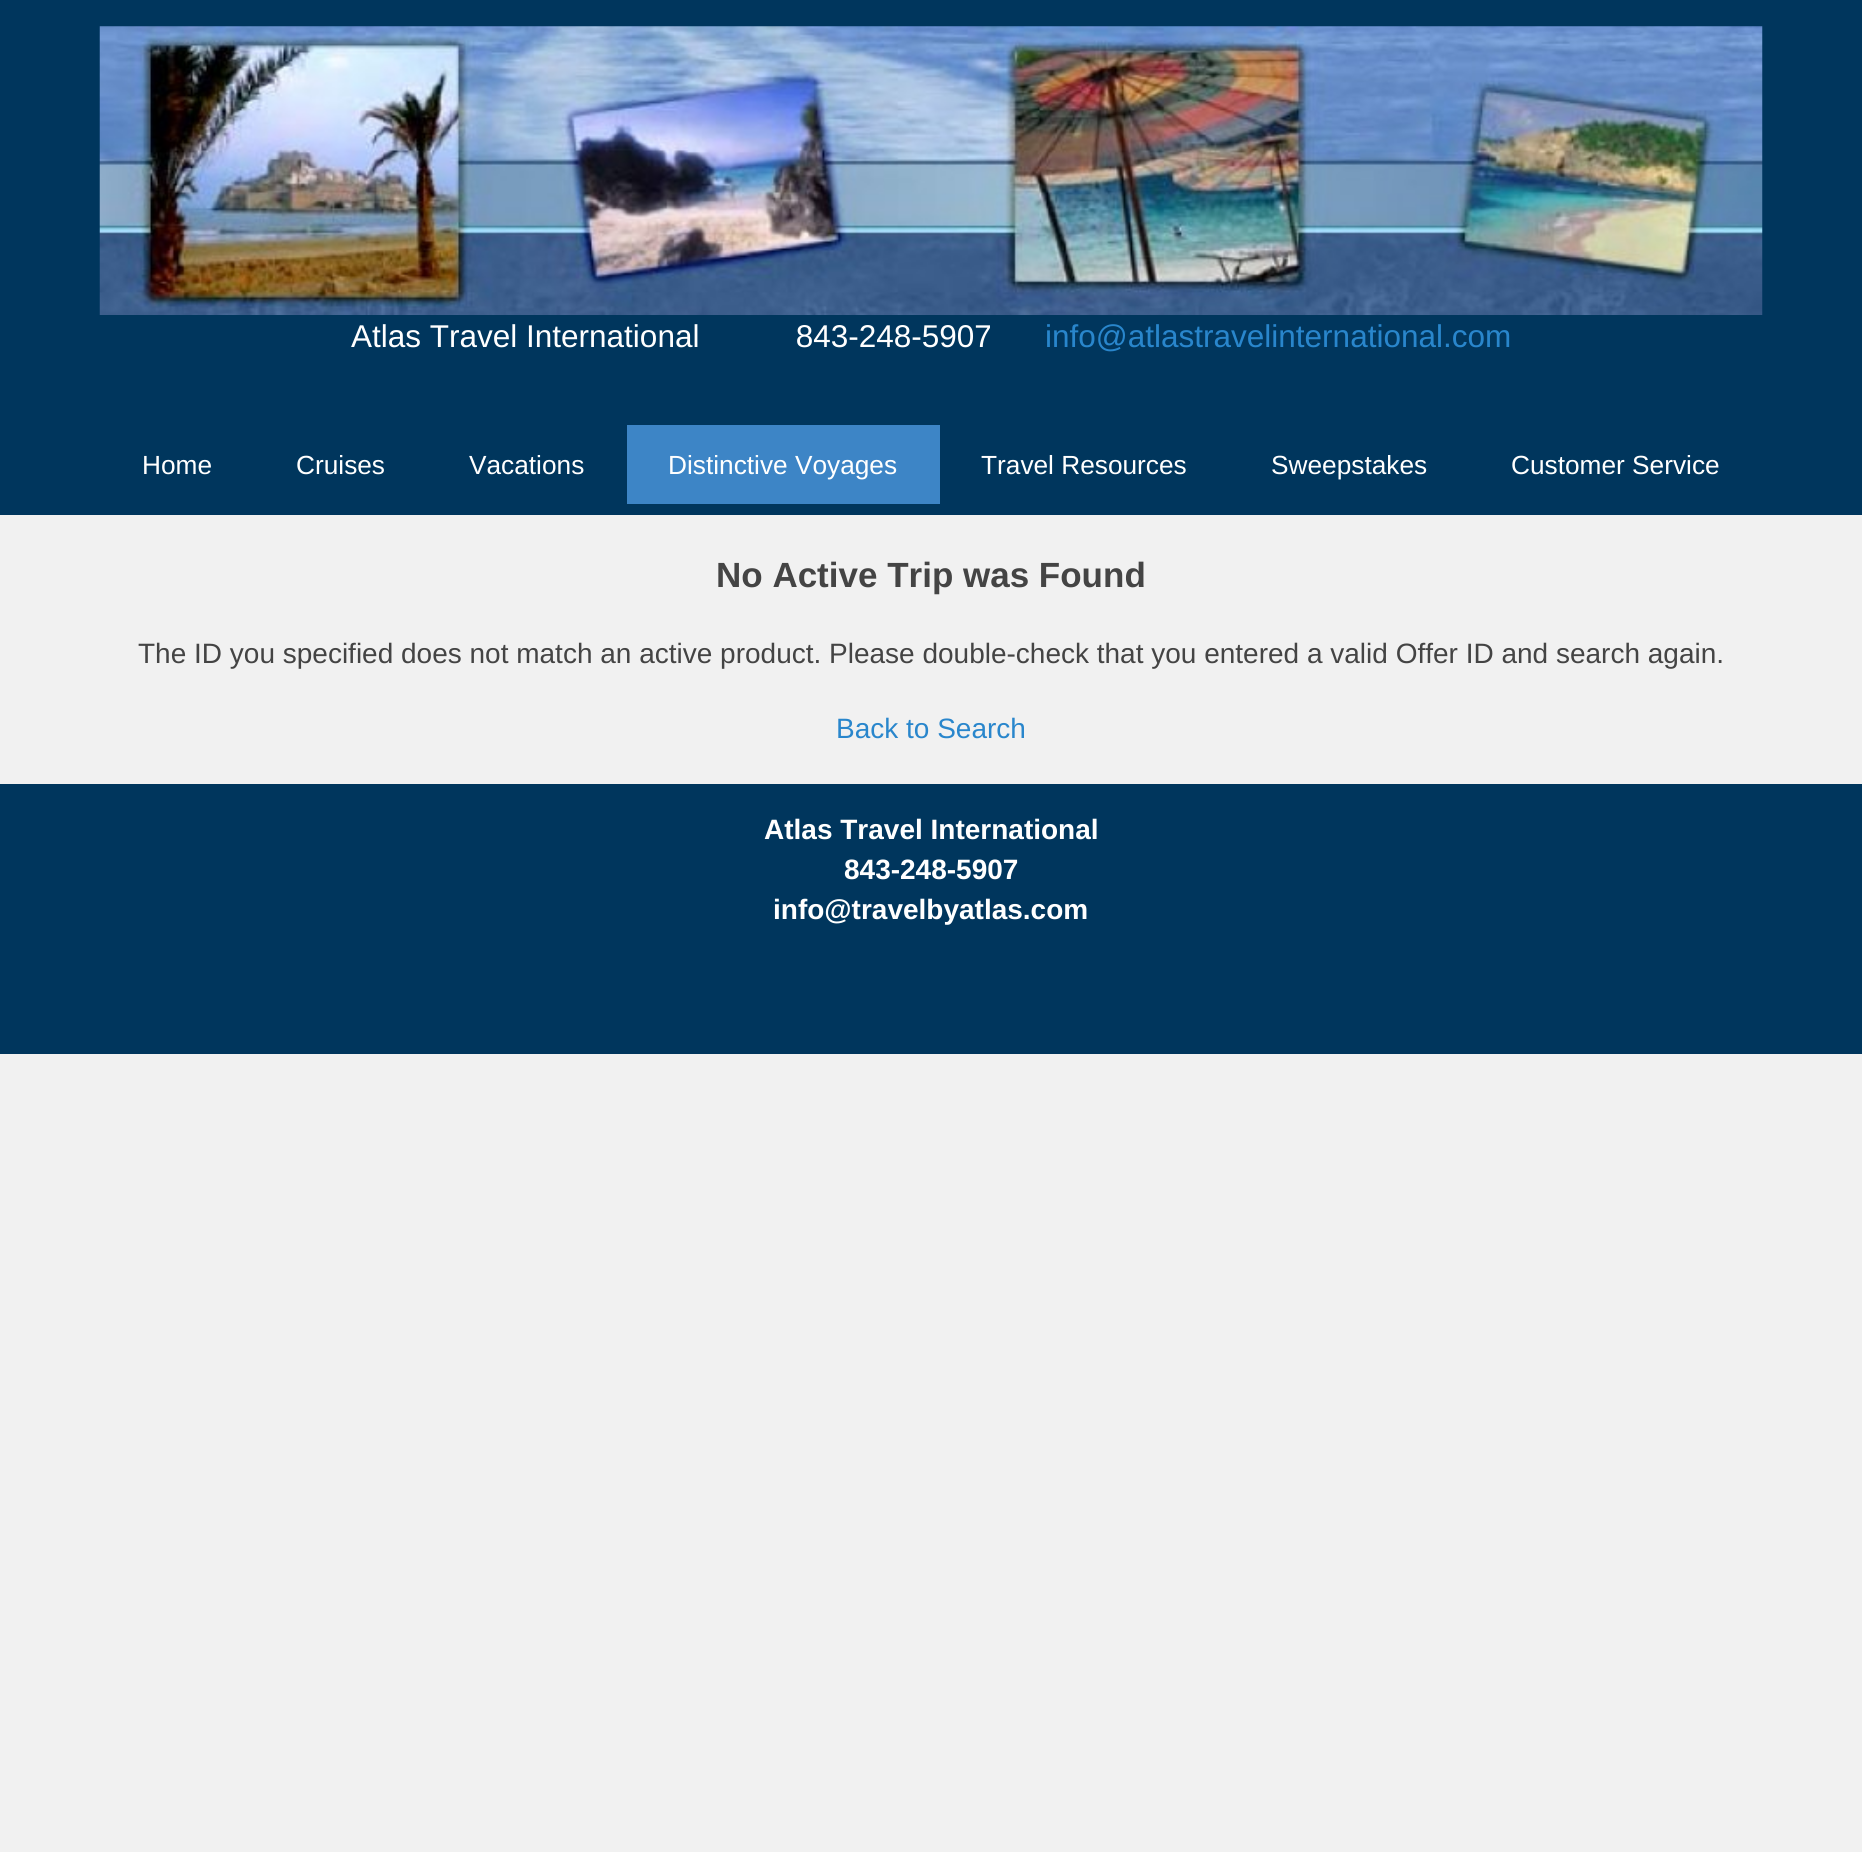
#include <cairo.h>
#include <math.h>
#include <stddef.h>


static void picture(cairo_t *cr, const char *path, double x, double y, double w, double h) {
    cairo_surface_t *image = cairo_image_surface_create_from_png(path);
    cairo_save(cr);
    cairo_set_source_surface(cr, image, x, y);
    cairo_rectangle(cr, x, y, w, h);
    cairo_fill(cr);
    cairo_restore(cr);
    cairo_surface_destroy(image);
}

int main(void) {
    cairo_surface_t *surface = cairo_image_surface_create(CAIRO_FORMAT_RGB24, 1862, 1852);
    cairo_t *cr = cairo_create(surface);
    cairo_font_options_t *options = cairo_font_options_create();
    cairo_font_options_set_hint_metrics(options, CAIRO_HINT_METRICS_OFF);
    cairo_font_options_set_hint_style(options, CAIRO_HINT_STYLE_NONE);
    cairo_set_font_options(cr, options);
    cairo_set_miter_limit(cr, 4);
    cairo_set_source_rgb(cr, 0.945, 0.945, 0.945);
    cairo_paint(cr);
    cairo_set_source_rgb(cr, 0, 0.212, 0.365);
    cairo_rectangle(cr, 0, 0, 1862, 515);
    cairo_fill(cr);
    picture(cr, "img1.png", 99, 26, 1664, 289);
    cairo_select_font_face(cr, "Liberation Sans", CAIRO_FONT_SLANT_NORMAL, CAIRO_FONT_WEIGHT_NORMAL);
    cairo_set_font_size(cr, 31.5);
    cairo_set_source_rgb(cr, 1, 1, 1);
    cairo_move_to(cr, 351, 347);
    cairo_show_text(cr, "Atlas Travel International           843-248-5907");
    cairo_set_source_rgb(cr, 0.161, 0.525, 0.8);
    cairo_move_to(cr, 1045, 347);
    cairo_show_text(cr, "info@atlastravelinternational.com");
    cairo_set_font_size(cr, 26.25);
    cairo_set_source_rgb(cr, 1, 1, 1);
    cairo_move_to(cr, 142, 474);
    cairo_show_text(cr, "Home");
    cairo_move_to(cr, 296, 474);
    cairo_show_text(cr, "Cruises");
    cairo_move_to(cr, 469, 474);
    cairo_show_text(cr, "Vacations");
    cairo_set_source_rgb(cr, 0.239, 0.522, 0.776);
    cairo_rectangle(cr, 627, 425, 313, 79);
    cairo_fill(cr);
    cairo_set_source_rgb(cr, 1, 1, 1);
    cairo_move_to(cr, 668, 474);
    cairo_show_text(cr, "Distinctive Voyages");
    cairo_move_to(cr, 981, 474);
    cairo_show_text(cr, "Travel Resources");
    cairo_move_to(cr, 1271, 474);
    cairo_show_text(cr, "Sweepstakes");
    cairo_move_to(cr, 1511, 474);
    cairo_show_text(cr, "Customer Service");
    cairo_select_font_face(cr, "Liberation Sans", CAIRO_FONT_SLANT_NORMAL, CAIRO_FONT_WEIGHT_BOLD);
    cairo_set_font_size(cr, 35);
    cairo_set_source_rgb(cr, 0.267, 0.267, 0.267);
    cairo_move_to(cr, 716, 587);
    cairo_show_text(cr, "No Active Trip was Found");
    cairo_select_font_face(cr, "Liberation Sans", CAIRO_FONT_SLANT_NORMAL, CAIRO_FONT_WEIGHT_NORMAL);
    cairo_set_font_size(cr, 28);
    cairo_move_to(cr, 138, 663);
    cairo_show_text(cr, "The ID you specified does not match an active product. Please double-check that you entered a valid Offer ID and search again.");
    cairo_set_source_rgb(cr, 0.161, 0.525, 0.8);
    cairo_move_to(cr, 836, 738);
    cairo_show_text(cr, "Back to Search");
    cairo_set_source_rgb(cr, 0, 0.212, 0.365);
    cairo_rectangle(cr, 0, 784, 1862, 270);
    cairo_fill(cr);
    cairo_select_font_face(cr, "Liberation Sans", CAIRO_FONT_SLANT_NORMAL, CAIRO_FONT_WEIGHT_BOLD);
    cairo_set_source_rgb(cr, 1, 1, 1);
    cairo_move_to(cr, 764, 839);
    cairo_show_text(cr, "Atlas Travel International");
    cairo_move_to(cr, 844, 879);
    cairo_show_text(cr, "843-248-5907");
    cairo_move_to(cr, 773, 919);
    cairo_show_text(cr, "info@travelbyatlas.com");
    cairo_surface_write_to_png(surface, "page.png");
    cairo_font_options_destroy(options);
    cairo_destroy(cr);
    cairo_surface_destroy(surface);
    return 0;
}
